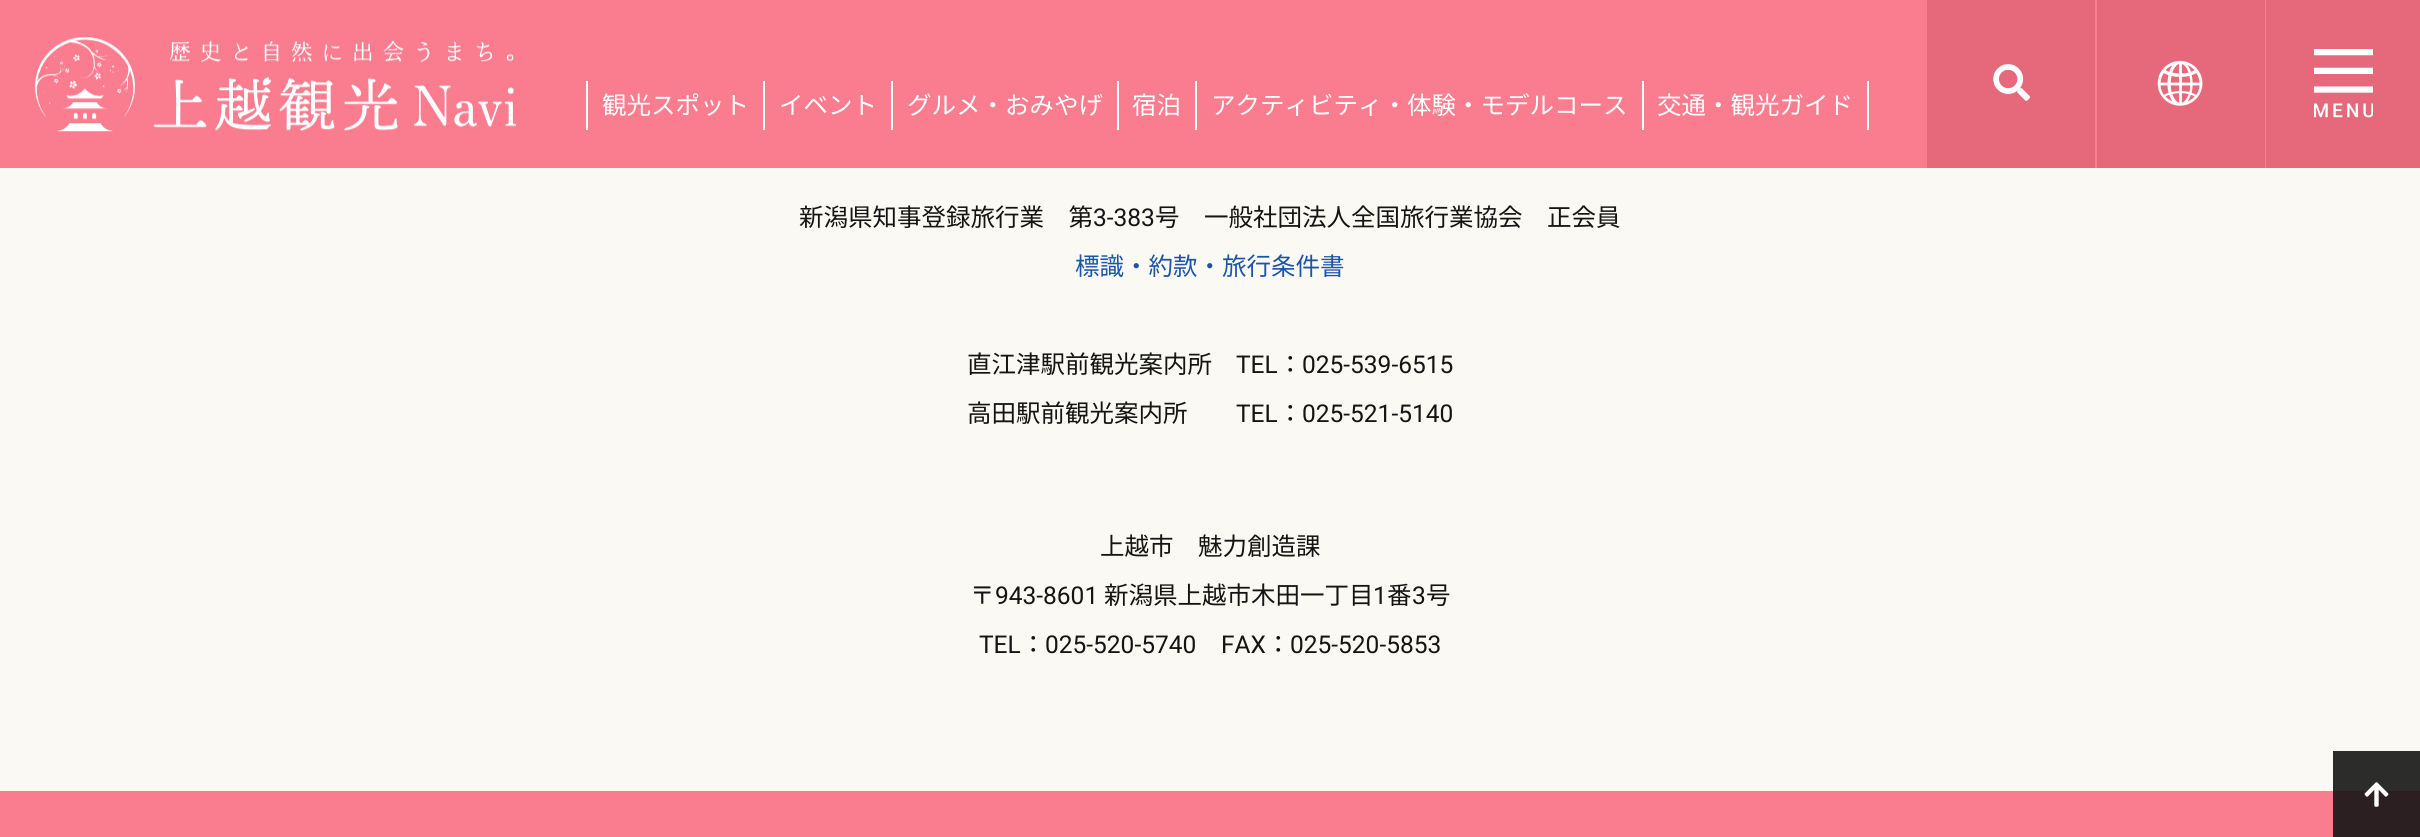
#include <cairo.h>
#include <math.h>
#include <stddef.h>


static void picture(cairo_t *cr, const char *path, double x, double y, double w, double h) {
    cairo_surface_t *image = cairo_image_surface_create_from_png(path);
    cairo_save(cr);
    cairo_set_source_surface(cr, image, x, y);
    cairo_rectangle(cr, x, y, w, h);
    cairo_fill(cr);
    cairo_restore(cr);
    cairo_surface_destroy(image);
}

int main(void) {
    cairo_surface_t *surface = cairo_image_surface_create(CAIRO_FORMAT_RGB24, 2420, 837);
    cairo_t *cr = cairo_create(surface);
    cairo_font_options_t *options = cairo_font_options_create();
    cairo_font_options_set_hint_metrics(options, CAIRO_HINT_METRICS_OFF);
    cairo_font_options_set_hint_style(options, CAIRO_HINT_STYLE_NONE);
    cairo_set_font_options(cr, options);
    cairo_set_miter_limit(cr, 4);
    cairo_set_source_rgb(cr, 0.98, 0.973, 0.953);
    cairo_paint(cr);
    cairo_set_source_rgb(cr, 0.973, 0.486, 0.561);
    cairo_rectangle(cr, 0, 0, 2266, 168);
    cairo_fill(cr);
    picture(cr, "img1.png", 35, 37, 481, 95);
    cairo_set_source_rgb(cr, 1, 1, 1);
    cairo_rectangle(cr, 763, 81, 2, 49);
    cairo_fill(cr);
    cairo_rectangle(cr, 586, 81, 2, 49);
    cairo_fill(cr);
    cairo_select_font_face(cr, "Noto Sans JP", CAIRO_FONT_SLANT_NORMAL, CAIRO_FONT_WEIGHT_NORMAL);
    cairo_set_font_size(cr, 24.5);
    cairo_move_to(cr, 602, 114);
    cairo_show_text(cr, "観光スポット");
    cairo_rectangle(cr, 891, 81, 2, 49);
    cairo_fill(cr);
    cairo_move_to(cr, 779, 114);
    cairo_show_text(cr, "イベント");
    cairo_rectangle(cr, 1117, 81, 2, 49);
    cairo_fill(cr);
    cairo_move_to(cr, 907, 114);
    cairo_show_text(cr, "グルメ・おみやげ");
    cairo_rectangle(cr, 1195, 81, 2, 49);
    cairo_fill(cr);
    cairo_move_to(cr, 1132, 114);
    cairo_show_text(cr, "宿泊");
    cairo_rectangle(cr, 1642, 81, 2, 49);
    cairo_fill(cr);
    cairo_move_to(cr, 1211, 114);
    cairo_show_text(cr, "アクティビティ・体験・モデルコース");
    cairo_rectangle(cr, 1867, 81, 2, 49);
    cairo_fill(cr);
    cairo_move_to(cr, 1657, 114);
    cairo_show_text(cr, "交通・観光ガイド");
    cairo_set_source_rgb(cr, 0.898, 0.408, 0.482);
    cairo_rectangle(cr, 1927, 0, 168, 168);
    cairo_fill(cr);
    picture(cr, "img2.png", 1993, 64, 37, 37);
    cairo_set_source_rgb(cr, 0.902, 0.412, 0.482);
    cairo_rectangle(cr, 2097, 0, 168, 168);
    cairo_fill(cr);
    picture(cr, "img3.png", 2157, 60, 46, 46);
    cairo_set_source_rgb(cr, 0.898, 0.408, 0.482);
    cairo_rectangle(cr, 2266, 0, 154, 168);
    cairo_fill(cr);
    picture(cr, "img4.png", 2314, 49, 59, 69);
    cairo_set_source_rgb(cr, 0.173, 0.173, 0.169);
    cairo_rectangle(cr, 2333, 751, 87, 40);
    cairo_fill(cr);
    cairo_set_source_rgb(cr, 0.082, 0.082, 0.082);
    cairo_move_to(cr, 799, 226);
    cairo_show_text(cr, "新潟県知事登録旅行業　第");
    cairo_select_font_face(cr, "Roboto", CAIRO_FONT_SLANT_NORMAL, CAIRO_FONT_WEIGHT_NORMAL);
    cairo_move_to(cr, 1093, 226);
    cairo_show_text(cr, "3-383");
    cairo_select_font_face(cr, "Noto Sans JP", CAIRO_FONT_SLANT_NORMAL, CAIRO_FONT_WEIGHT_NORMAL);
    cairo_move_to(cr, 1155, 226);
    cairo_show_text(cr, "号　一般社団法人全国旅行業協会　正会員");
    cairo_set_source_rgb(cr, 0.114, 0.329, 0.655);
    cairo_move_to(cr, 1075, 275);
    cairo_show_text(cr, "標識・約款・旅行条件書");
    cairo_set_source_rgb(cr, 0.082, 0.082, 0.082);
    cairo_move_to(cr, 967, 373);
    cairo_show_text(cr, "直江津駅前観光案内所");
    cairo_select_font_face(cr, "Roboto", CAIRO_FONT_SLANT_NORMAL, CAIRO_FONT_WEIGHT_NORMAL);
    cairo_move_to(cr, 1236, 373);
    cairo_show_text(cr, "TEL");
    cairo_select_font_face(cr, "Noto Sans JP", CAIRO_FONT_SLANT_NORMAL, CAIRO_FONT_WEIGHT_NORMAL);
    cairo_move_to(cr, 1278, 373);
    cairo_show_text(cr, "：");
    cairo_select_font_face(cr, "Roboto", CAIRO_FONT_SLANT_NORMAL, CAIRO_FONT_WEIGHT_NORMAL);
    cairo_move_to(cr, 1302, 373);
    cairo_show_text(cr, "025-539-6515");
    cairo_select_font_face(cr, "Noto Sans JP", CAIRO_FONT_SLANT_NORMAL, CAIRO_FONT_WEIGHT_NORMAL);
    cairo_move_to(cr, 967, 422);
    cairo_show_text(cr, "高田駅前観光案内所");
    cairo_select_font_face(cr, "Roboto", CAIRO_FONT_SLANT_NORMAL, CAIRO_FONT_WEIGHT_NORMAL);
    cairo_move_to(cr, 1236, 422);
    cairo_show_text(cr, "TEL");
    cairo_select_font_face(cr, "Noto Sans JP", CAIRO_FONT_SLANT_NORMAL, CAIRO_FONT_WEIGHT_NORMAL);
    cairo_move_to(cr, 1278, 422);
    cairo_show_text(cr, "：");
    cairo_select_font_face(cr, "Roboto", CAIRO_FONT_SLANT_NORMAL, CAIRO_FONT_WEIGHT_NORMAL);
    cairo_move_to(cr, 1302, 422);
    cairo_show_text(cr, "025-521-5140");
    cairo_select_font_face(cr, "Noto Sans JP", CAIRO_FONT_SLANT_NORMAL, CAIRO_FONT_WEIGHT_NORMAL);
    cairo_move_to(cr, 1100, 555);
    cairo_show_text(cr, "上越市　魅力創造課");
    cairo_move_to(cr, 970, 604);
    cairo_show_text(cr, "〒");
    cairo_select_font_face(cr, "Roboto", CAIRO_FONT_SLANT_NORMAL, CAIRO_FONT_WEIGHT_NORMAL);
    cairo_move_to(cr, 995, 604);
    cairo_show_text(cr, "943-8601");
    cairo_select_font_face(cr, "Noto Sans JP", CAIRO_FONT_SLANT_NORMAL, CAIRO_FONT_WEIGHT_NORMAL);
    cairo_move_to(cr, 1104, 604);
    cairo_show_text(cr, "新潟県上越市木田一丁目");
    cairo_select_font_face(cr, "Roboto", CAIRO_FONT_SLANT_NORMAL, CAIRO_FONT_WEIGHT_NORMAL);
    cairo_move_to(cr, 1373, 604);
    cairo_show_text(cr, "1");
    cairo_select_font_face(cr, "Noto Sans JP", CAIRO_FONT_SLANT_NORMAL, CAIRO_FONT_WEIGHT_NORMAL);
    cairo_move_to(cr, 1387, 604);
    cairo_show_text(cr, "番");
    cairo_select_font_face(cr, "Roboto", CAIRO_FONT_SLANT_NORMAL, CAIRO_FONT_WEIGHT_NORMAL);
    cairo_move_to(cr, 1412, 604);
    cairo_show_text(cr, "3");
    cairo_select_font_face(cr, "Noto Sans JP", CAIRO_FONT_SLANT_NORMAL, CAIRO_FONT_WEIGHT_NORMAL);
    cairo_move_to(cr, 1426, 604);
    cairo_show_text(cr, "号");
    cairo_select_font_face(cr, "Roboto", CAIRO_FONT_SLANT_NORMAL, CAIRO_FONT_WEIGHT_NORMAL);
    cairo_move_to(cr, 979, 653);
    cairo_show_text(cr, "TEL");
    cairo_select_font_face(cr, "Noto Sans JP", CAIRO_FONT_SLANT_NORMAL, CAIRO_FONT_WEIGHT_NORMAL);
    cairo_move_to(cr, 1021, 653);
    cairo_show_text(cr, "：");
    cairo_select_font_face(cr, "Roboto", CAIRO_FONT_SLANT_NORMAL, CAIRO_FONT_WEIGHT_NORMAL);
    cairo_move_to(cr, 1045, 653);
    cairo_show_text(cr, "025-520-5740");
    cairo_move_to(cr, 1221, 653);
    cairo_show_text(cr, "FAX");
    cairo_select_font_face(cr, "Noto Sans JP", CAIRO_FONT_SLANT_NORMAL, CAIRO_FONT_WEIGHT_NORMAL);
    cairo_move_to(cr, 1266, 653);
    cairo_show_text(cr, "：");
    cairo_select_font_face(cr, "Roboto", CAIRO_FONT_SLANT_NORMAL, CAIRO_FONT_WEIGHT_NORMAL);
    cairo_move_to(cr, 1290, 653);
    cairo_show_text(cr, "025-520-5853");
    cairo_set_source_rgb(cr, 0.973, 0.486, 0.561);
    cairo_rectangle(cr, 0, 791, 2333, 46);
    cairo_fill(cr);
    cairo_set_source_rgb(cr, 0.173, 0.122, 0.129);
    cairo_rectangle(cr, 2333, 791, 87, 46);
    cairo_fill(cr);
    picture(cr, "img5.png", 2364, 782, 25, 25);
    cairo_surface_write_to_png(surface, "page.png");
    cairo_font_options_destroy(options);
    cairo_destroy(cr);
    cairo_surface_destroy(surface);
    return 0;
}
